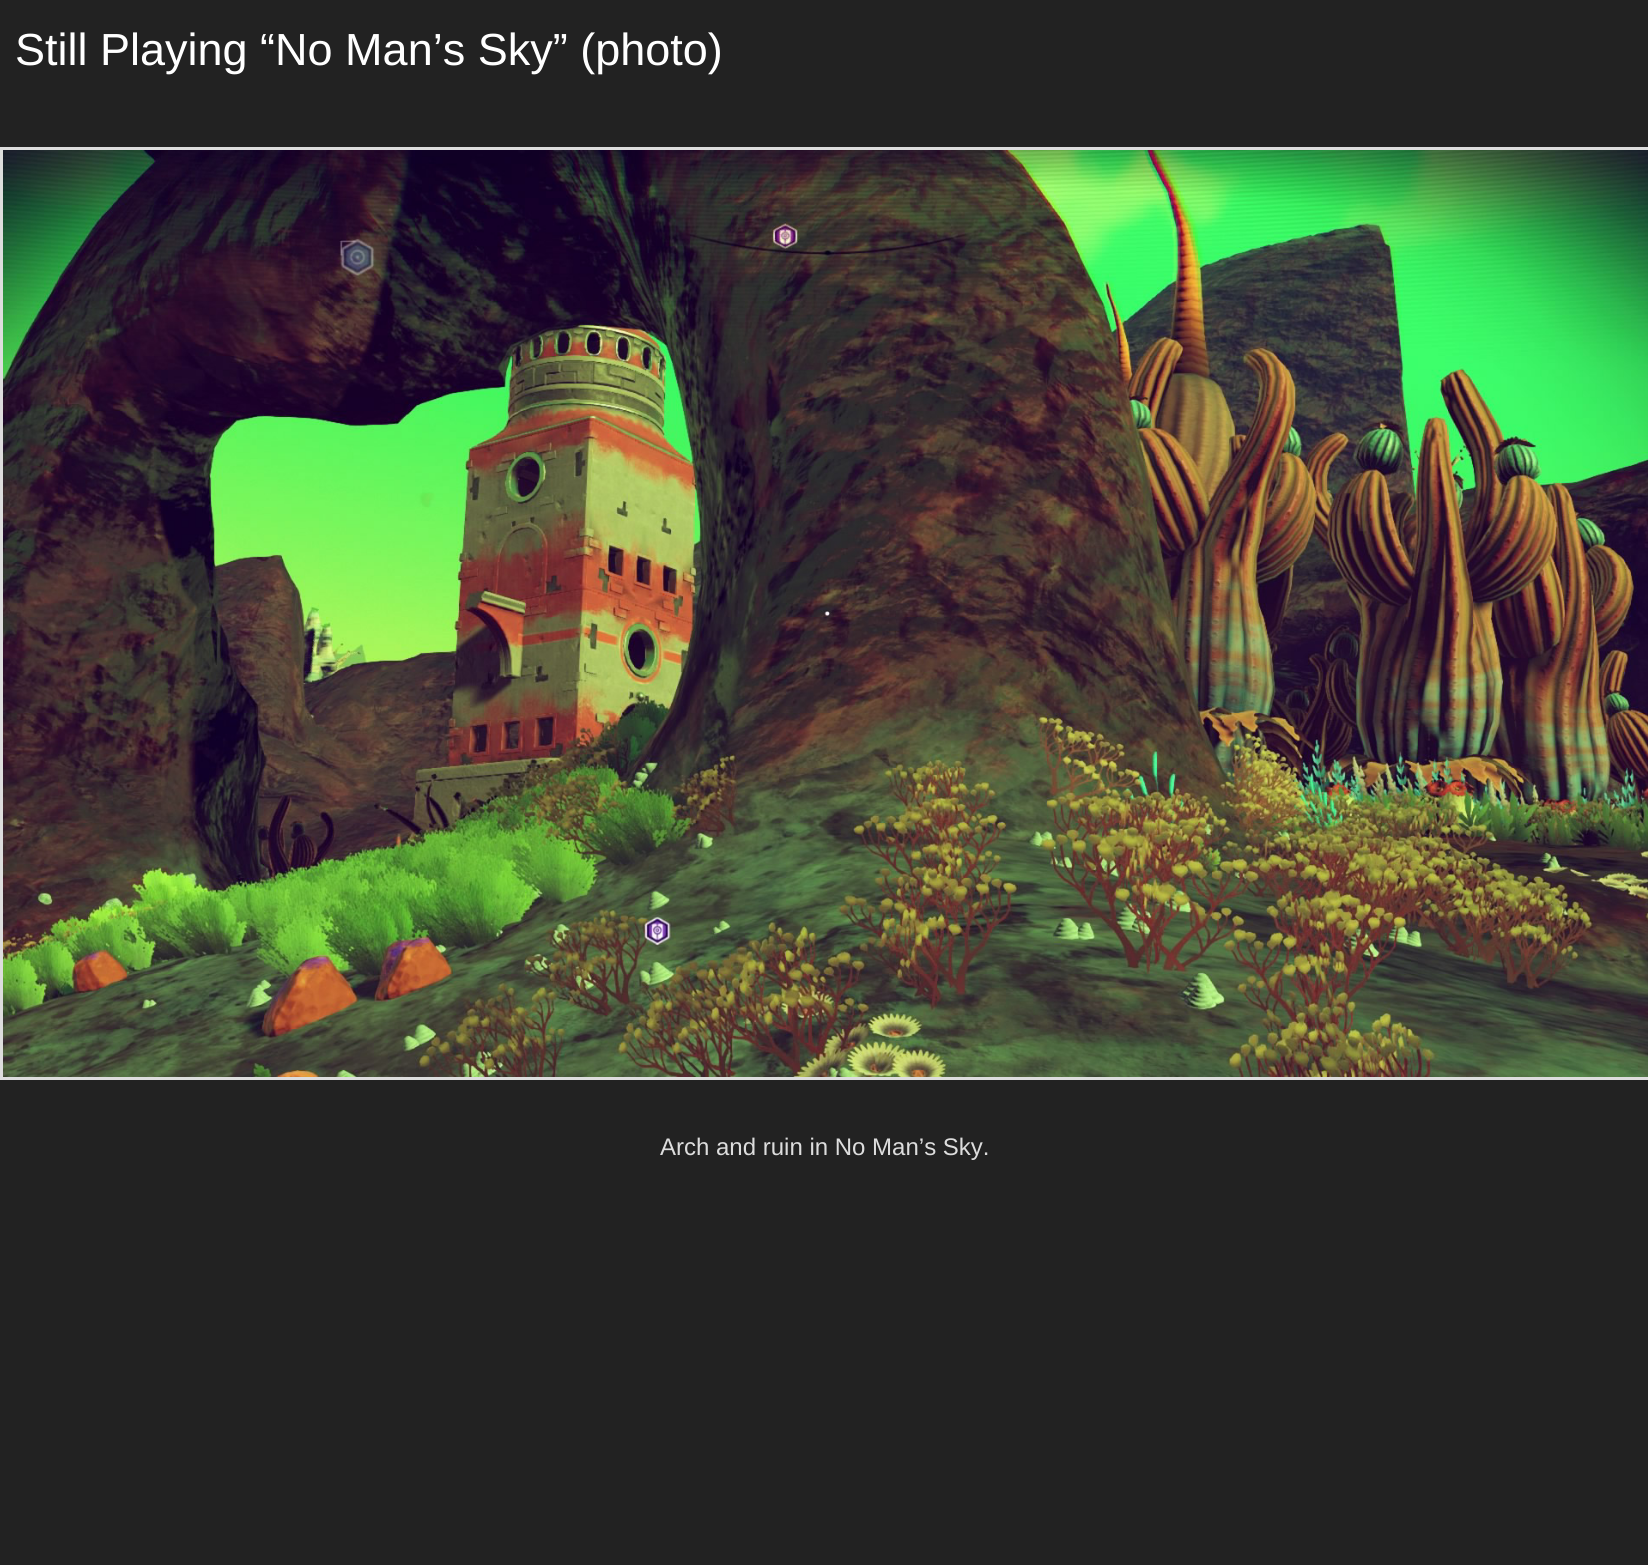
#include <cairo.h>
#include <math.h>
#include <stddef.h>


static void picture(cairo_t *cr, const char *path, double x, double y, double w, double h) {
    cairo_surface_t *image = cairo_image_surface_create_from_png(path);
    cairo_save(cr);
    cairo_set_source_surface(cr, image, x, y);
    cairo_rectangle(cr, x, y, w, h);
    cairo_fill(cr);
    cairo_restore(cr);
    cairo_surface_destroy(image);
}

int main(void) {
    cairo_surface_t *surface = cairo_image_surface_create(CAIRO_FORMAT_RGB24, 1648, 1565);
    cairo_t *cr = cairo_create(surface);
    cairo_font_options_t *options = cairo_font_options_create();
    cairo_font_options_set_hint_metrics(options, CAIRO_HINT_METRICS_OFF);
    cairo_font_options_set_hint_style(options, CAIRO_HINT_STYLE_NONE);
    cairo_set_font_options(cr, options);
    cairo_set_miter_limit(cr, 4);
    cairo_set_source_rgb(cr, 0.133, 0.133, 0.133);
    cairo_paint(cr);
    cairo_select_font_face(cr, "Liberation Sans", CAIRO_FONT_SLANT_NORMAL, CAIRO_FONT_WEIGHT_NORMAL);
    cairo_set_font_size(cr, 45);
    cairo_set_source_rgb(cr, 1, 1, 1);
    cairo_move_to(cr, 15, 65);
    cairo_show_text(cr, "Still Playing “No Man’s Sky” (photo)");
    cairo_rectangle(cr, 1.5, 148.5, 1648, 930);
    cairo_set_source_rgb(cr, 0.867, 0.867, 0.867);
    cairo_set_line_width(cr, 3);
    cairo_stroke(cr);
    picture(cr, "img1.png", 3, 150, 1645, 927);
    cairo_set_font_size(cr, 24);
    cairo_move_to(cr, 660, 1155);
    cairo_show_text(cr, "Arch and ruin in No Man’s Sky.");
    cairo_surface_write_to_png(surface, "page.png");
    cairo_font_options_destroy(options);
    cairo_destroy(cr);
    cairo_surface_destroy(surface);
    return 0;
}
